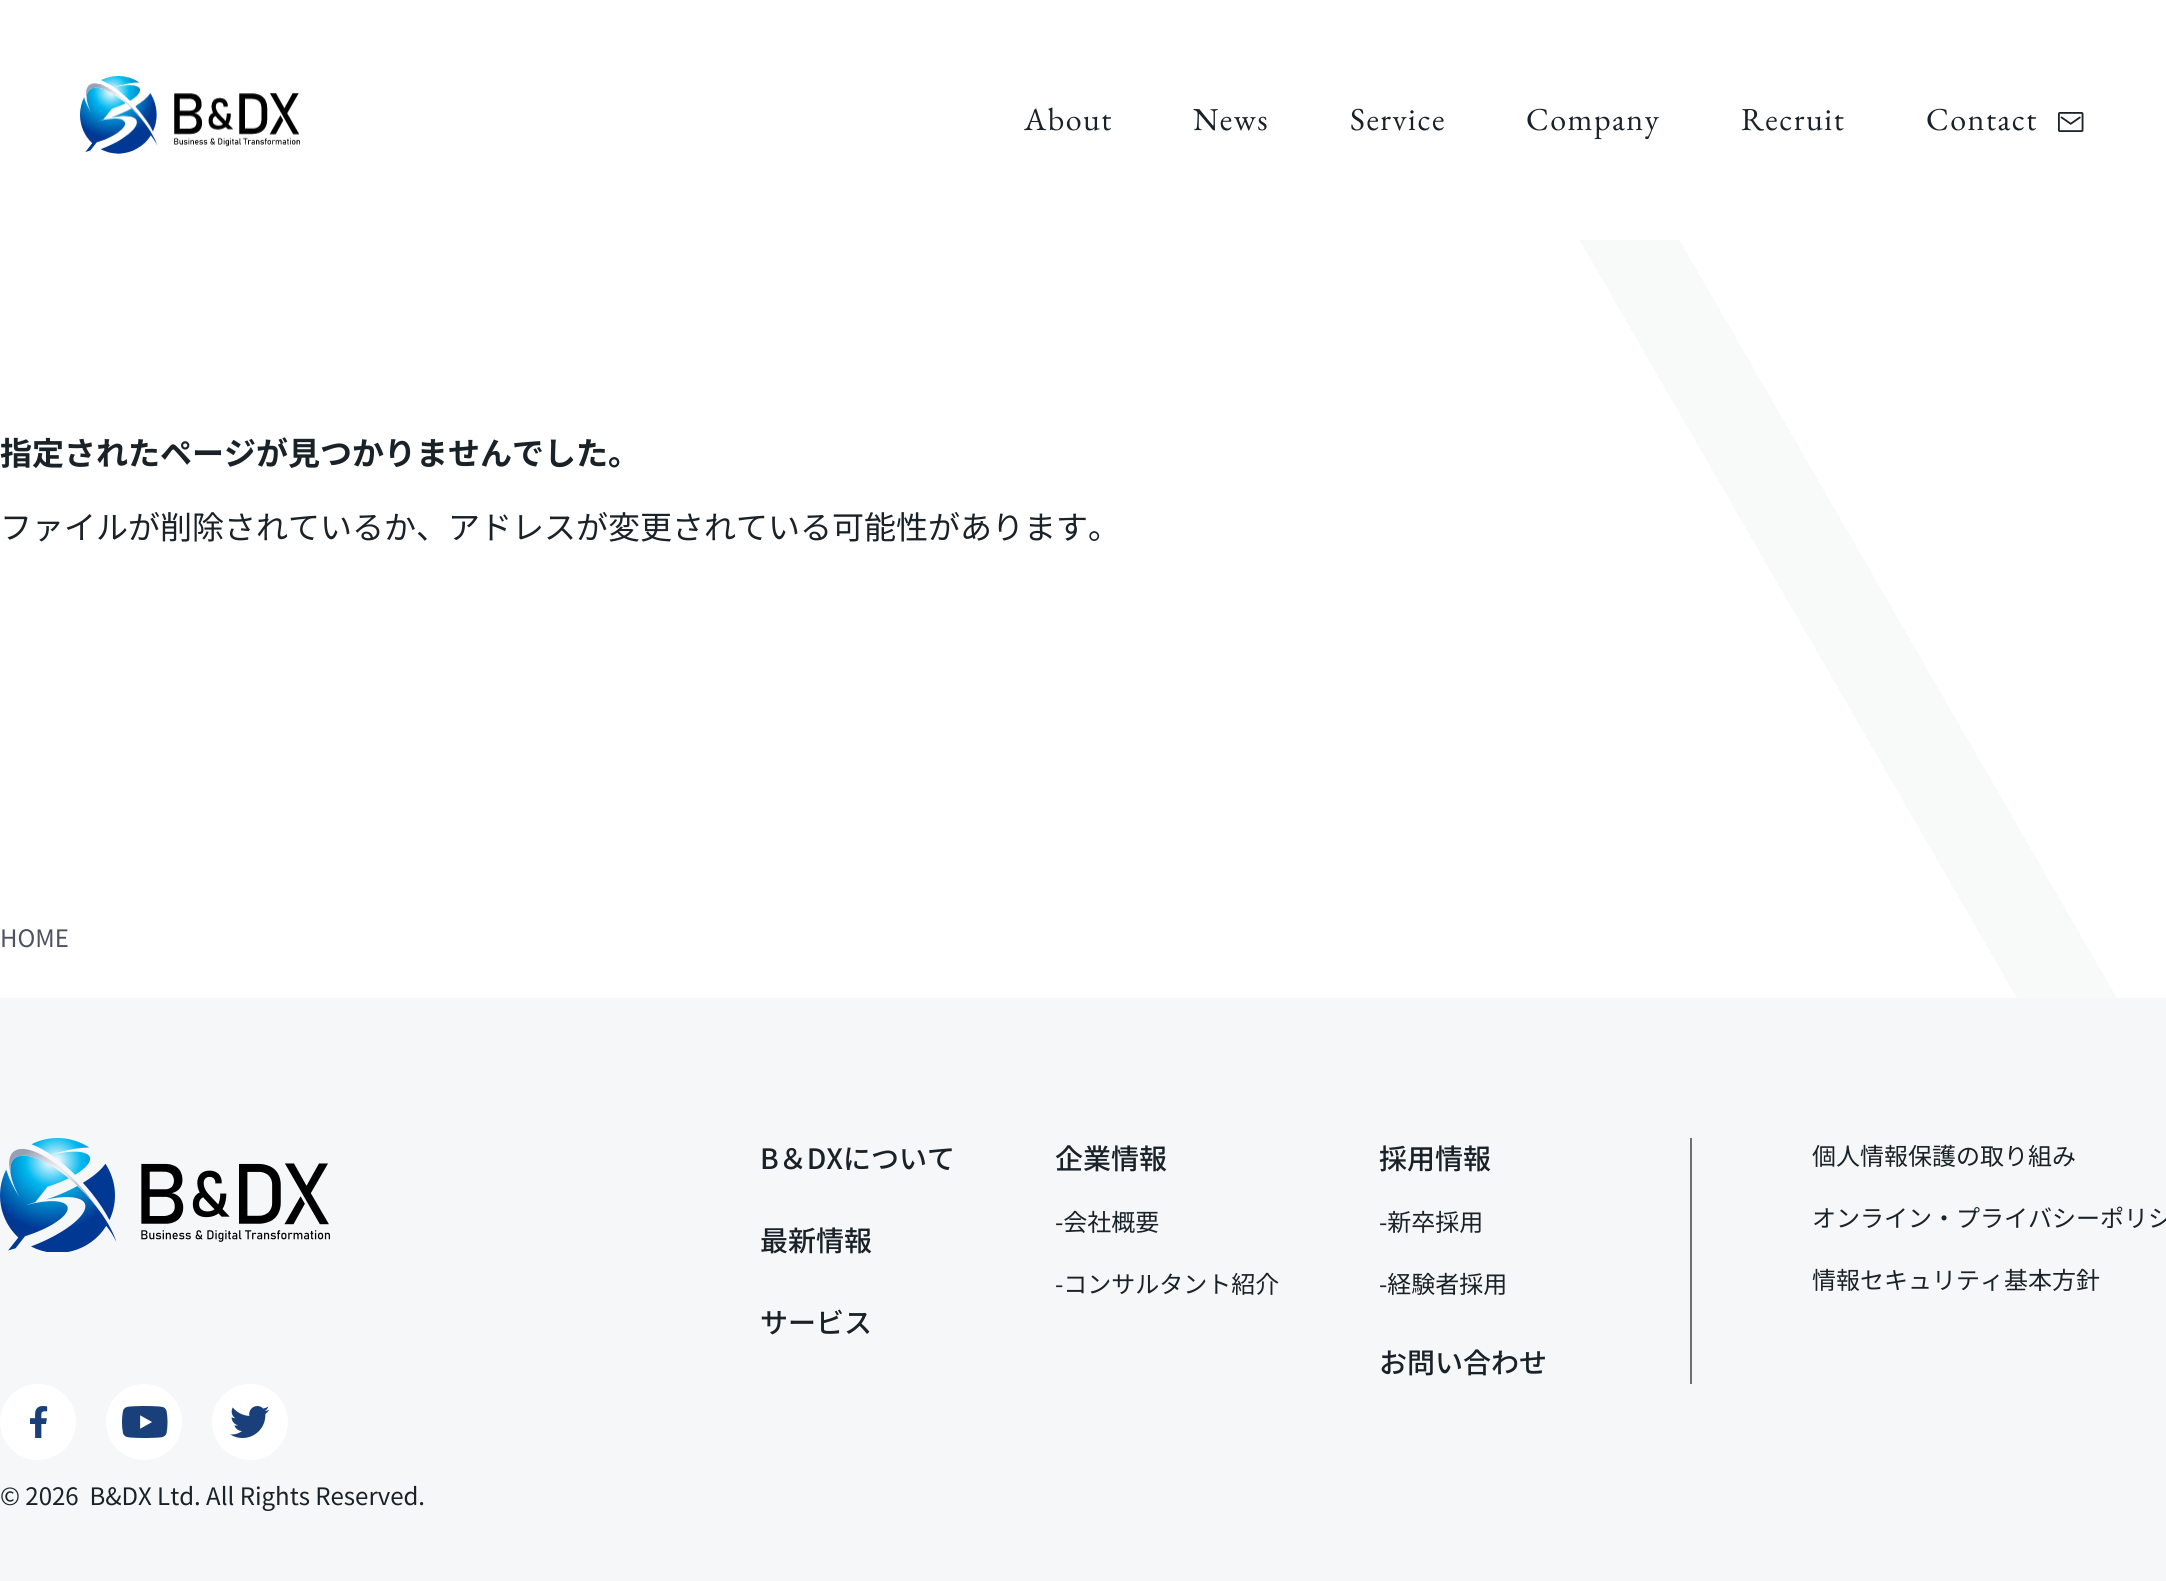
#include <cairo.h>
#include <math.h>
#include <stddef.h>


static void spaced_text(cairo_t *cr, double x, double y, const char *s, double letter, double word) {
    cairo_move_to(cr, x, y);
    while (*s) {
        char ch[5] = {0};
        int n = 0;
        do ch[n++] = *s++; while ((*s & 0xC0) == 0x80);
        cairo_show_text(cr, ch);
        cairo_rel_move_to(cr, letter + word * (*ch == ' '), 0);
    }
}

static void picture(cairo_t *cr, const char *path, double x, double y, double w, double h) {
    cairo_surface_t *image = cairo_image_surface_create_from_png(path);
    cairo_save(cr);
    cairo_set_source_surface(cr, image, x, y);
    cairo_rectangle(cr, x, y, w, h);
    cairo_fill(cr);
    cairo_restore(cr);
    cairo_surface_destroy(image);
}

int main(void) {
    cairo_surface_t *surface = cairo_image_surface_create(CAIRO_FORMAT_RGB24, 2166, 1581);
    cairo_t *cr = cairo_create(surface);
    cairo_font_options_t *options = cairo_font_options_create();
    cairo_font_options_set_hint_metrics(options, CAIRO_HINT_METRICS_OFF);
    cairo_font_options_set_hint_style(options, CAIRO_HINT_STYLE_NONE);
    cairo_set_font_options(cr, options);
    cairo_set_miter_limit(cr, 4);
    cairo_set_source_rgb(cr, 1, 1, 1);
    cairo_paint(cr);
    cairo_set_source_rgb(cr, 0.969, 0.973, 0.976);
    cairo_new_path(cr);
    cairo_move_to(cr, 1441, 0);
    cairo_line_to(cr, 1541, 0);
    cairo_line_to(cr, 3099, 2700);
    cairo_line_to(cr, 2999, 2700);
    cairo_close_path(cr);
    cairo_fill(cr);
    cairo_set_source_rgb(cr, 1, 1, 1);
    cairo_rectangle(cr, 1441, 0, 238, 240);
    cairo_fill(cr);
    picture(cr, "img1.png", 80, 76, 220, 78);
    cairo_select_font_face(cr, "EB Garamond", CAIRO_FONT_SLANT_NORMAL, CAIRO_FONT_WEIGHT_NORMAL);
    cairo_set_font_size(cr, 32);
    cairo_set_source_rgb(cr, 0.102, 0.133, 0.161);
    spaced_text(cr, 1024, 130, "About", 1.5, 0);
    spaced_text(cr, 1193, 130, "News", 1.5, 0);
    spaced_text(cr, 1350, 130, "Service", 1.5, 0);
    spaced_text(cr, 1526, 130, "Company", 1.5, 0);
    spaced_text(cr, 1741, 130, "Recruit", 1.5, 0);
    spaced_text(cr, 1926, 130, "Contact", 1.5, 0);
    picture(cr, "img2.png", 2058, 112, 26, 20);
    cairo_select_font_face(cr, "Noto Sans JP", CAIRO_FONT_SLANT_NORMAL, CAIRO_FONT_WEIGHT_BOLD);
    cairo_move_to(cr, 0, 465);
    cairo_show_text(cr, "指定されたページが見つかりませんでした。");
    cairo_select_font_face(cr, "Noto Sans JP", CAIRO_FONT_SLANT_NORMAL, CAIRO_FONT_WEIGHT_NORMAL);
    cairo_move_to(cr, 0, 539);
    cairo_show_text(cr, "ファイルが削除されているか、アドレスが変更されている可能性があります。");
    cairo_set_font_size(cr, 24);
    cairo_set_source_rgb(cr, 0.298, 0.322, 0.384);
    cairo_move_to(cr, 0, 947);
    cairo_show_text(cr, "HOME");
    cairo_set_source_rgb(cr, 0.961, 0.965, 0.969);
    cairo_rectangle(cr, 0, 998, 2166, 583);
    cairo_fill(cr);
    picture(cr, "img3.png", 0, 1138, 330, 114);
    cairo_select_font_face(cr, "Noto Sans JP Medium", CAIRO_FONT_SLANT_NORMAL, CAIRO_FONT_WEIGHT_NORMAL);
    cairo_set_font_size(cr, 28);
    cairo_set_source_rgb(cr, 0.102, 0.133, 0.161);
    cairo_move_to(cr, 760, 1169);
    cairo_show_text(cr, "B＆DXについて");
    cairo_move_to(cr, 760, 1251);
    cairo_show_text(cr, "最新情報");
    cairo_move_to(cr, 760, 1333);
    cairo_show_text(cr, "サービス");
    cairo_move_to(cr, 1055, 1169);
    cairo_show_text(cr, "企業情報");
    cairo_select_font_face(cr, "Noto Sans JP", CAIRO_FONT_SLANT_NORMAL, CAIRO_FONT_WEIGHT_NORMAL);
    cairo_set_font_size(cr, 24);
    cairo_move_to(cr, 1055, 1231);
    cairo_show_text(cr, "-会社概要");
    cairo_move_to(cr, 1055, 1293);
    cairo_show_text(cr, "-コンサルタント紹介");
    cairo_select_font_face(cr, "Noto Sans JP Medium", CAIRO_FONT_SLANT_NORMAL, CAIRO_FONT_WEIGHT_NORMAL);
    cairo_set_font_size(cr, 28);
    cairo_move_to(cr, 1379, 1169);
    cairo_show_text(cr, "採用情報");
    cairo_select_font_face(cr, "Noto Sans JP", CAIRO_FONT_SLANT_NORMAL, CAIRO_FONT_WEIGHT_NORMAL);
    cairo_set_font_size(cr, 24);
    cairo_move_to(cr, 1379, 1231);
    cairo_show_text(cr, "-新卒採用");
    cairo_move_to(cr, 1379, 1293);
    cairo_show_text(cr, "-経験者採用");
    cairo_select_font_face(cr, "Noto Sans JP Medium", CAIRO_FONT_SLANT_NORMAL, CAIRO_FONT_WEIGHT_NORMAL);
    cairo_set_font_size(cr, 28);
    cairo_move_to(cr, 1379, 1373);
    cairo_show_text(cr, "お問い合わせ");
    cairo_set_source_rgb(cr, 0.439, 0.439, 0.439);
    cairo_rectangle(cr, 1690, 1138, 2, 246);
    cairo_fill(cr);
    cairo_select_font_face(cr, "Noto Sans JP", CAIRO_FONT_SLANT_NORMAL, CAIRO_FONT_WEIGHT_NORMAL);
    cairo_set_font_size(cr, 24);
    cairo_set_source_rgb(cr, 0.102, 0.133, 0.161);
    cairo_move_to(cr, 1812, 1165);
    cairo_show_text(cr, "個⼈情報保護の取り組み");
    cairo_move_to(cr, 1812, 1227);
    cairo_show_text(cr, "オンライン・プライバシーポリシ");
    cairo_move_to(cr, 1812, 1289);
    cairo_show_text(cr, "情報セキュリティ基本⽅針");
    cairo_set_source_rgb(cr, 1, 1, 1);
    cairo_new_path(cr);
    cairo_arc(cr, 38, 1422, 38, 0, 2 * M_PI);
    cairo_fill(cr);
    picture(cr, "img4.png", 30, 1406, 18, 32);
    cairo_arc(cr, 144, 1422, 38, 0, 2 * M_PI);
    cairo_fill(cr);
    picture(cr, "img5.png", 122, 1406, 46, 32);
    cairo_arc(cr, 250, 1422, 38, 0, 2 * M_PI);
    cairo_fill(cr);
    picture(cr, "img6.png", 230, 1406, 40, 32);
    cairo_set_source_rgb(cr, 0.102, 0.133, 0.161);
    cairo_move_to(cr, 0, 1505);
    cairo_show_text(cr, "© 2026  B&DX Ltd. All Rights Reserved.");
    cairo_surface_write_to_png(surface, "page.png");
    cairo_font_options_destroy(options);
    cairo_destroy(cr);
    cairo_surface_destroy(surface);
    return 0;
}
